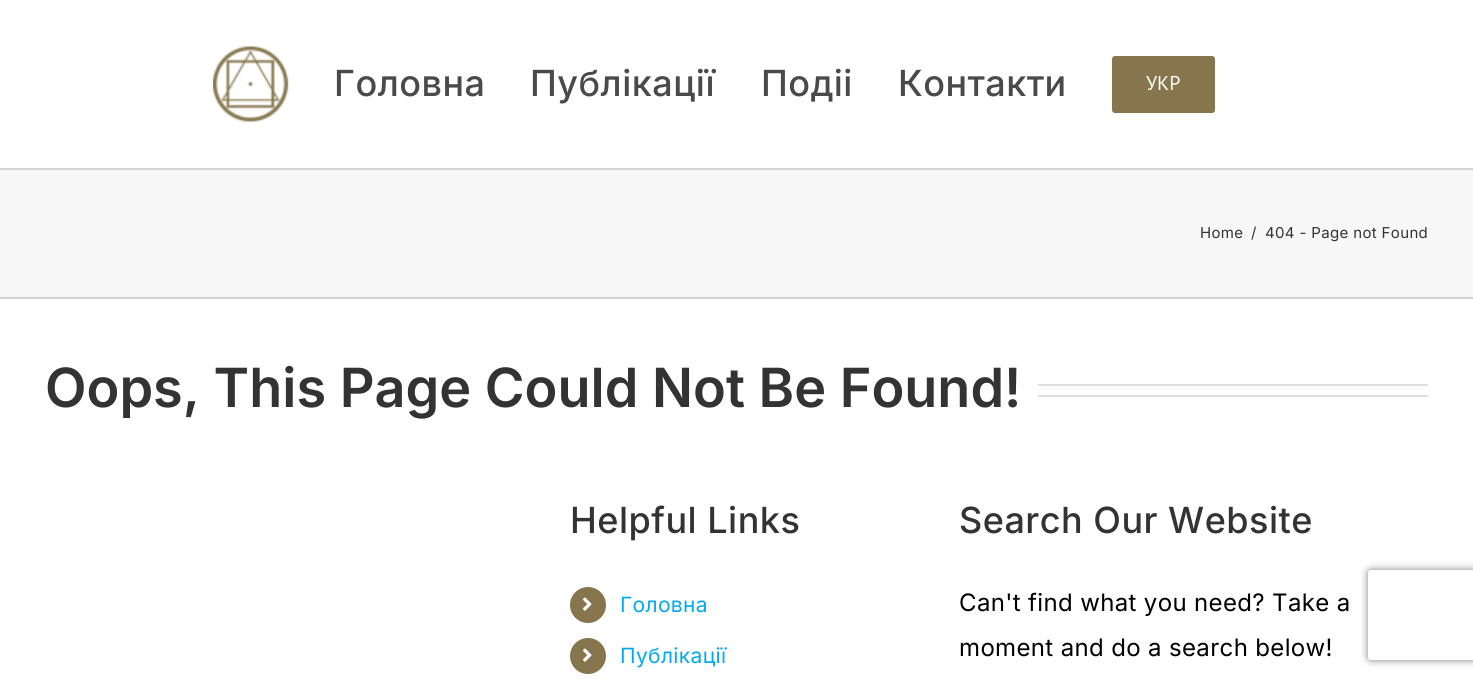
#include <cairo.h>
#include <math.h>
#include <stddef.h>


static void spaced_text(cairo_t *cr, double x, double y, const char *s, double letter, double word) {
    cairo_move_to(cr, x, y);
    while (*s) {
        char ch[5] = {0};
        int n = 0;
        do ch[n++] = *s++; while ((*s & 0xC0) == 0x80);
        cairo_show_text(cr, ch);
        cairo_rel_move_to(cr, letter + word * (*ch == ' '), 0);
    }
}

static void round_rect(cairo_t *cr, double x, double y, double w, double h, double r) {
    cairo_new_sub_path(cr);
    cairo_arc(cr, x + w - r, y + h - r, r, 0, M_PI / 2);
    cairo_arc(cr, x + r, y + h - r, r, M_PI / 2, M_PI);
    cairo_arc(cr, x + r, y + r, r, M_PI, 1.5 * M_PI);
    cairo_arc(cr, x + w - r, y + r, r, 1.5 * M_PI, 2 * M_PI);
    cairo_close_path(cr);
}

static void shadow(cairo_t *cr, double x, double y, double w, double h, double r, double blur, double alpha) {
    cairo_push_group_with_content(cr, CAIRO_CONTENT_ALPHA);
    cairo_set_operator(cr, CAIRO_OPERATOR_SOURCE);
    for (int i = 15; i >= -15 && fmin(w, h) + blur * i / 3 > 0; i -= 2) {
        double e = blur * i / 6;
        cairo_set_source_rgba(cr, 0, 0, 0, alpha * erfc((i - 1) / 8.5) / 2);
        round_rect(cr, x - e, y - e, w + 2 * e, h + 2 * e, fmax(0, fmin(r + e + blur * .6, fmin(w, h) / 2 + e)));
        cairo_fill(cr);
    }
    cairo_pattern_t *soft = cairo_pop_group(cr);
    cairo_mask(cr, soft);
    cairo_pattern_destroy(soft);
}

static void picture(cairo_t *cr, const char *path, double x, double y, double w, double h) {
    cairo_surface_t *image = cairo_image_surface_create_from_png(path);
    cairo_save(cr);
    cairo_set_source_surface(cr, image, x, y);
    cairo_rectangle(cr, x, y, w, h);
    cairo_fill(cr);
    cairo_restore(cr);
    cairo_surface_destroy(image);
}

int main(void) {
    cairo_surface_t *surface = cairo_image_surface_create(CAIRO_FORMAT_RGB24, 1473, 680);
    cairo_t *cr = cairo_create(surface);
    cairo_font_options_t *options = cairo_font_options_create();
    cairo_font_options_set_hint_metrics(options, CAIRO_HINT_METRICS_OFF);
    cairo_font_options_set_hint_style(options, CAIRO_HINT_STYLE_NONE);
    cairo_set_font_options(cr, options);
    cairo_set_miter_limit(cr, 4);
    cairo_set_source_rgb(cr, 1, 1, 1);
    cairo_paint(cr);
    picture(cr, "img1.png", 213, 46, 76, 76);
    cairo_select_font_face(cr, "Inter Medium", CAIRO_FONT_SLANT_NORMAL, CAIRO_FONT_WEIGHT_NORMAL);
    cairo_set_font_size(cr, 36);
    cairo_set_source_rgb(cr, 0.29, 0.29, 0.29);
    spaced_text(cr, 334, 96, "Головна", 0.5, 0);
    spaced_text(cr, 530, 96, "Публікації", 0.5, 0);
    spaced_text(cr, 761, 96, "Подіі", 0.5, 0);
    spaced_text(cr, 898, 96, "Контакти", 0.5, 0);
    cairo_set_source_rgb(cr, 0.525, 0.459, 0.302);
    round_rect(cr, 1112, 56, 103, 57, 3);
    cairo_fill(cr);
    cairo_select_font_face(cr, "PT Sans", CAIRO_FONT_SLANT_NORMAL, CAIRO_FONT_WEIGHT_NORMAL);
    cairo_set_font_size(cr, 20);
    cairo_set_source_rgb(cr, 1, 1, 1);
    cairo_move_to(cr, 1146, 90);
    cairo_show_text(cr, "УКР");
    cairo_set_source_rgb(cr, 0.965, 0.965, 0.965);
    cairo_rectangle(cr, 0, 170, 1473, 127);
    cairo_fill(cr);
    cairo_set_source_rgb(cr, 0.824, 0.827, 0.831);
    cairo_rectangle(cr, 0, 168, 1473, 2);
    cairo_fill(cr);
    cairo_rectangle(cr, 0, 297, 1473, 2);
    cairo_fill(cr);
    cairo_select_font_face(cr, "Inter", CAIRO_FONT_SLANT_NORMAL, CAIRO_FONT_WEIGHT_NORMAL);
    cairo_set_font_size(cr, 15);
    cairo_set_source_rgb(cr, 0.2, 0.2, 0.2);
    spaced_text(cr, 1200, 238, "Home", 0.35, 0);
    spaced_text(cr, 1251, 238, "/", 0.35, 0);
    spaced_text(cr, 1265, 238, "404 - Page not Found", 0.35, 0);
    cairo_select_font_face(cr, "Inter SemiBold", CAIRO_FONT_SLANT_NORMAL, CAIRO_FONT_WEIGHT_NORMAL);
    cairo_set_font_size(cr, 54);
    cairo_move_to(cr, 45, 407);
    cairo_show_text(cr, "Oops, This Page Could Not Be Found!");
    cairo_set_source_rgb(cr, 0.878, 0.871, 0.871);
    cairo_rectangle(cr, 1038, 384, 390, 2);
    cairo_fill(cr);
    cairo_rectangle(cr, 1038, 395, 390, 2);
    cairo_fill(cr);
    cairo_select_font_face(cr, "Inter Medium", CAIRO_FONT_SLANT_NORMAL, CAIRO_FONT_WEIGHT_NORMAL);
    cairo_set_font_size(cr, 36);
    cairo_set_source_rgb(cr, 0.2, 0.2, 0.2);
    spaced_text(cr, 570, 533, "Helpful Links", 0.5, 0);
    cairo_set_source_rgb(cr, 0.525, 0.459, 0.302);
    cairo_new_path(cr);
    cairo_arc(cr, 588, 605, 18, 0, 2 * M_PI);
    cairo_fill(cr);
    picture(cr, "img2.png", 583, 597, 9, 14);
    cairo_select_font_face(cr, "Inter", CAIRO_FONT_SLANT_NORMAL, CAIRO_FONT_WEIGHT_NORMAL);
    cairo_set_font_size(cr, 21);
    cairo_set_source_rgb(cr, 0.012, 0.663, 0.957);
    spaced_text(cr, 620, 612, "Головна", 0.35, 0);
    cairo_set_source_rgb(cr, 0.525, 0.459, 0.302);
    cairo_new_path(cr);
    cairo_arc(cr, 588, 656, 18, 0, 2 * M_PI);
    cairo_fill(cr);
    picture(cr, "img2.png", 583, 648, 9, 14);
    cairo_set_source_rgb(cr, 0.012, 0.663, 0.957);
    spaced_text(cr, 620, 663, "Публікації", 0.35, 0);
    cairo_select_font_face(cr, "Inter Medium", CAIRO_FONT_SLANT_NORMAL, CAIRO_FONT_WEIGHT_NORMAL);
    cairo_set_font_size(cr, 36);
    cairo_set_source_rgb(cr, 0.2, 0.2, 0.2);
    spaced_text(cr, 959, 533, "Search Our Website", 0.5, 0);
    cairo_select_font_face(cr, "Inter", CAIRO_FONT_SLANT_NORMAL, CAIRO_FONT_WEIGHT_NORMAL);
    cairo_set_font_size(cr, 24);
    cairo_set_source_rgb(cr, 0, 0, 0);
    spaced_text(cr, 959, 611, "Can't find what you need? Take a", 0.35, 0);
    spaced_text(cr, 959, 656, "moment and do a search below!", 0.35, 0);
    cairo_save(cr);
    cairo_set_fill_rule(cr, CAIRO_FILL_RULE_EVEN_ODD);
    cairo_new_path(cr);
    cairo_move_to(cr, 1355, 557);
    cairo_line_to(cr, 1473, 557);
    cairo_line_to(cr, 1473, 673);
    cairo_line_to(cr, 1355, 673);
    cairo_close_path(cr);
    cairo_move_to(cr, 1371, 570);
    cairo_line_to(cr, 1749, 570);
    cairo_curve_to(cr, 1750.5, 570, 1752, 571.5, 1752, 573);
    cairo_line_to(cr, 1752, 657);
    cairo_curve_to(cr, 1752, 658.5, 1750.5, 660, 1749, 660);
    cairo_line_to(cr, 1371, 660);
    cairo_curve_to(cr, 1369.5, 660, 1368, 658.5, 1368, 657);
    cairo_line_to(cr, 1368, 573);
    cairo_curve_to(cr, 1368, 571.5, 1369.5, 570, 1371, 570);
    cairo_close_path(cr);
    cairo_clip(cr);
    cairo_set_source_rgb(cr, 0.502, 0.502, 0.502);
    shadow(cr, 1368, 570, 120, 90, 3, 4, 1);
    cairo_restore(cr);
    cairo_surface_write_to_png(surface, "page.png");
    cairo_font_options_destroy(options);
    cairo_destroy(cr);
    cairo_surface_destroy(surface);
    return 0;
}
